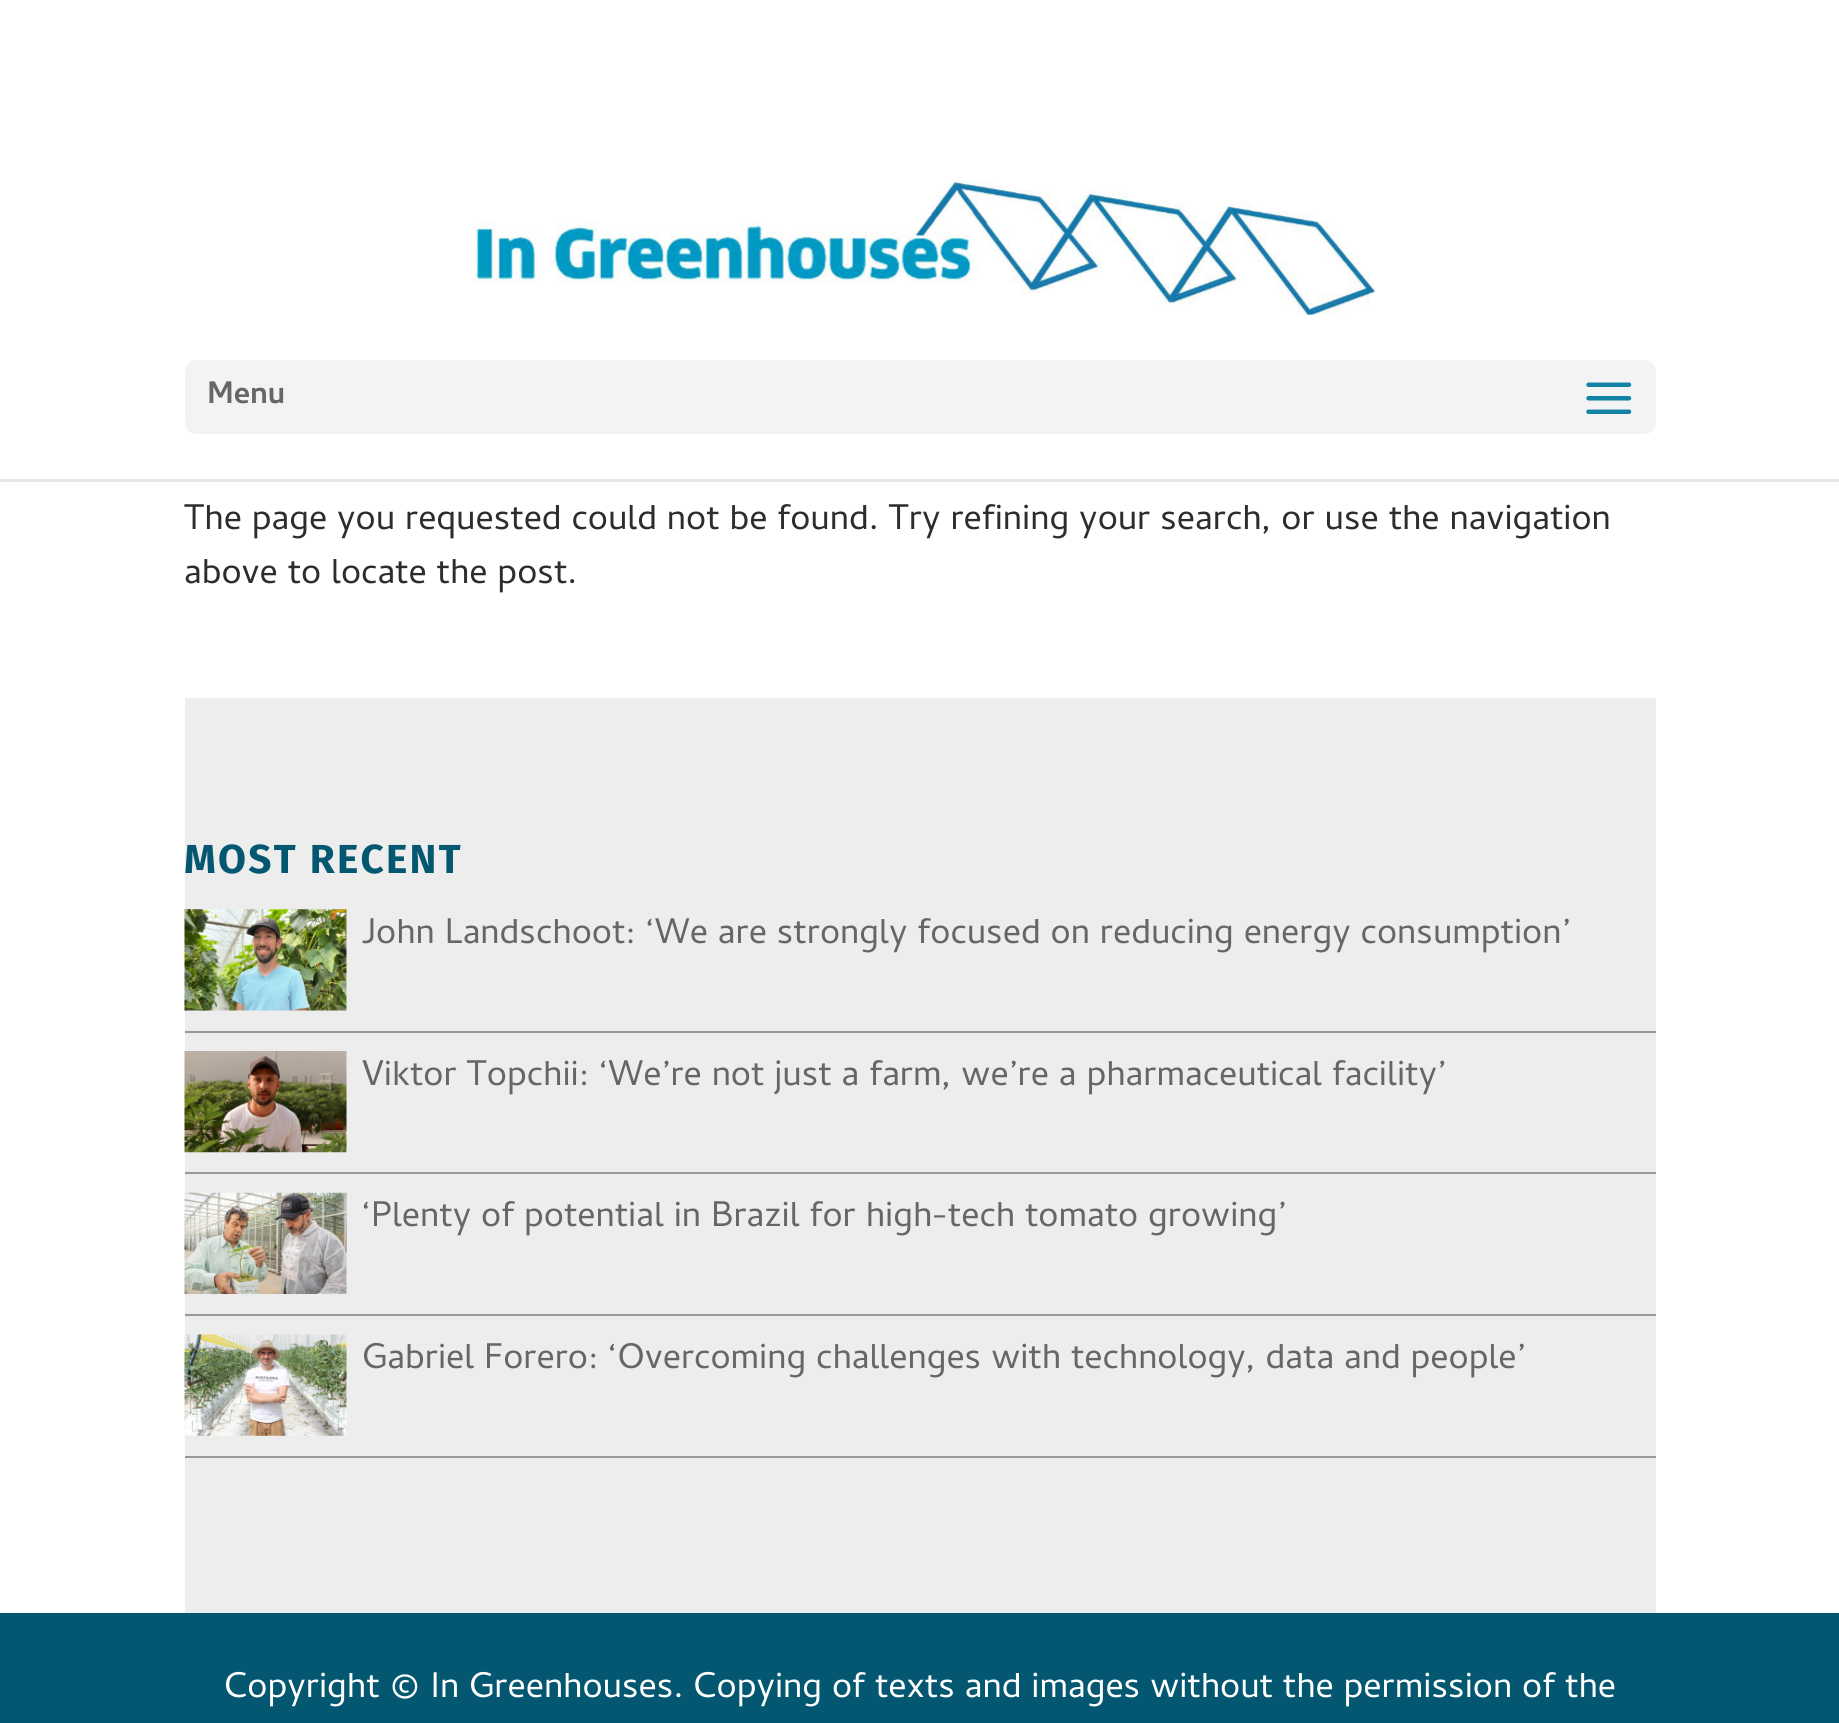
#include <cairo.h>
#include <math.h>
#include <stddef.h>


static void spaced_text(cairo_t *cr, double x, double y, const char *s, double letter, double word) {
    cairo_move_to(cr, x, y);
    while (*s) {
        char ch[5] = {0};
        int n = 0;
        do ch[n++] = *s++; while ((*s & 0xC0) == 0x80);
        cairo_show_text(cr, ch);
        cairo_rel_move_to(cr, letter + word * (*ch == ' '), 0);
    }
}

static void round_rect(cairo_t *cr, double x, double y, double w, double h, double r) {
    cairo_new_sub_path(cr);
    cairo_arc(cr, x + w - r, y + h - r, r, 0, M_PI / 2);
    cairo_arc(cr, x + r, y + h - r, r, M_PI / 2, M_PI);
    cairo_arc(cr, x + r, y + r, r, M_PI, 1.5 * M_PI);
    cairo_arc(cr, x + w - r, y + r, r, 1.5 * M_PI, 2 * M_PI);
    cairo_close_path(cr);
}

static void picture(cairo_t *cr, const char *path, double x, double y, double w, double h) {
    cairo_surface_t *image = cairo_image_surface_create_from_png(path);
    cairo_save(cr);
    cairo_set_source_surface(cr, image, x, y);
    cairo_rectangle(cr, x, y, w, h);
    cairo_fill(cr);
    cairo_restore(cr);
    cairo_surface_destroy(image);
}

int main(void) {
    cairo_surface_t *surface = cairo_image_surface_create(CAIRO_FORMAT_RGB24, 1839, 1723);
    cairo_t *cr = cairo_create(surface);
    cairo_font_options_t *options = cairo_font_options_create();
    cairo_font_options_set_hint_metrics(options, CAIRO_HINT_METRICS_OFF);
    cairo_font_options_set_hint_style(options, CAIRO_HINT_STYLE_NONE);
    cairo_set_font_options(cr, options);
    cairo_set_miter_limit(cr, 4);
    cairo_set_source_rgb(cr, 1, 1, 1);
    cairo_paint(cr);
    cairo_set_source_rgb(cr, 0.902, 0.902, 0.902);
    cairo_new_path(cr);
    cairo_move_to(cr, 0, 479);
    cairo_line_to(cr, 0, 482);
    cairo_line_to(cr, 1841, 482);
    cairo_line_to(cr, 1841, -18);
    cairo_line_to(cr, 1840, -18);
    cairo_line_to(cr, 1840, 479);
    cairo_close_path(cr);
    cairo_fill(cr);
    picture(cr, "img1.png", 475, 180, 900, 135);
    cairo_set_source_rgb(cr, 0.953, 0.953, 0.953);
    round_rect(cr, 185, 360, 1471, 74, 11);
    cairo_fill(cr);
    cairo_select_font_face(cr, "Cambay", CAIRO_FONT_SLANT_NORMAL, CAIRO_FONT_WEIGHT_BOLD);
    cairo_set_font_size(cr, 31.5);
    cairo_set_source_rgb(cr, 0.4, 0.4, 0.4);
    cairo_move_to(cr, 207, 403);
    cairo_show_text(cr, "Menu");
    picture(cr, "img2.png", 1586, 382, 46, 32);
    cairo_select_font_face(cr, "Cambay", CAIRO_FONT_SLANT_NORMAL, CAIRO_FONT_WEIGHT_NORMAL);
    cairo_set_font_size(cr, 36);
    cairo_set_source_rgb(cr, 0.176, 0.176, 0.176);
    cairo_move_to(cr, 184, 529);
    cairo_show_text(cr, "The page you requested could not be found. Try refining your search, or use the navigation");
    cairo_move_to(cr, 184, 583);
    cairo_show_text(cr, "above to locate the post.");
    cairo_set_source_rgb(cr, 0.929, 0.929, 0.929);
    cairo_rectangle(cr, 185, 698, 1471, 915);
    cairo_fill(cr);
    cairo_select_font_face(cr, "Fira Sans", CAIRO_FONT_SLANT_NORMAL, CAIRO_FONT_WEIGHT_BOLD);
    cairo_set_font_size(cr, 40.5);
    cairo_set_source_rgb(cr, 0.016, 0.341, 0.439);
    spaced_text(cr, 184, 873, "MOST RECENT", 2.25, 0);
    cairo_set_source_rgb(cr, 0.6, 0.6, 0.6);
    cairo_rectangle(cr, 185, 1031, 1471, 2);
    cairo_fill(cr);
    picture(cr, "img3.png", 184, 909, 163, 102);
    cairo_select_font_face(cr, "Cambay", CAIRO_FONT_SLANT_NORMAL, CAIRO_FONT_WEIGHT_NORMAL);
    cairo_set_font_size(cr, 36);
    cairo_set_source_rgb(cr, 0.4, 0.4, 0.4);
    cairo_move_to(cr, 362, 943);
    cairo_show_text(cr, "John Landschoot: ‘We are strongly focused on reducing energy consumption’");
    cairo_set_source_rgb(cr, 0.6, 0.6, 0.6);
    cairo_rectangle(cr, 185, 1172, 1471, 2);
    cairo_fill(cr);
    picture(cr, "img4.png", 184, 1051, 163, 102);
    cairo_set_source_rgb(cr, 0.4, 0.4, 0.4);
    cairo_move_to(cr, 362, 1085);
    cairo_show_text(cr, "Viktor Topchii: ‘We’re not just a farm, we’re a pharmaceutical facility’");
    cairo_set_source_rgb(cr, 0.6, 0.6, 0.6);
    cairo_rectangle(cr, 185, 1314, 1471, 2);
    cairo_fill(cr);
    picture(cr, "img5.png", 184, 1192, 163, 102);
    cairo_set_source_rgb(cr, 0.4, 0.4, 0.4);
    cairo_move_to(cr, 362, 1226);
    cairo_show_text(cr, "‘Plenty of potential in Brazil for high-tech tomato growing’");
    cairo_set_source_rgb(cr, 0.6, 0.6, 0.6);
    cairo_rectangle(cr, 185, 1456, 1471, 2);
    cairo_fill(cr);
    picture(cr, "img6.png", 184, 1334, 163, 102);
    cairo_set_source_rgb(cr, 0.4, 0.4, 0.4);
    cairo_move_to(cr, 362, 1368);
    cairo_show_text(cr, "Gabriel Forero: ‘Overcoming challenges with technology, data and people’");
    cairo_set_source_rgb(cr, 0.016, 0.341, 0.439);
    cairo_rectangle(cr, 0, 1613, 1839, 110);
    cairo_fill(cr);
    cairo_set_source_rgb(cr, 1, 1, 1);
    cairo_move_to(cr, 224, 1697);
    cairo_show_text(cr, "Copyright © In Greenhouses. Copying of texts and images without the permission of the");
    cairo_surface_write_to_png(surface, "page.png");
    cairo_font_options_destroy(options);
    cairo_destroy(cr);
    cairo_surface_destroy(surface);
    return 0;
}
